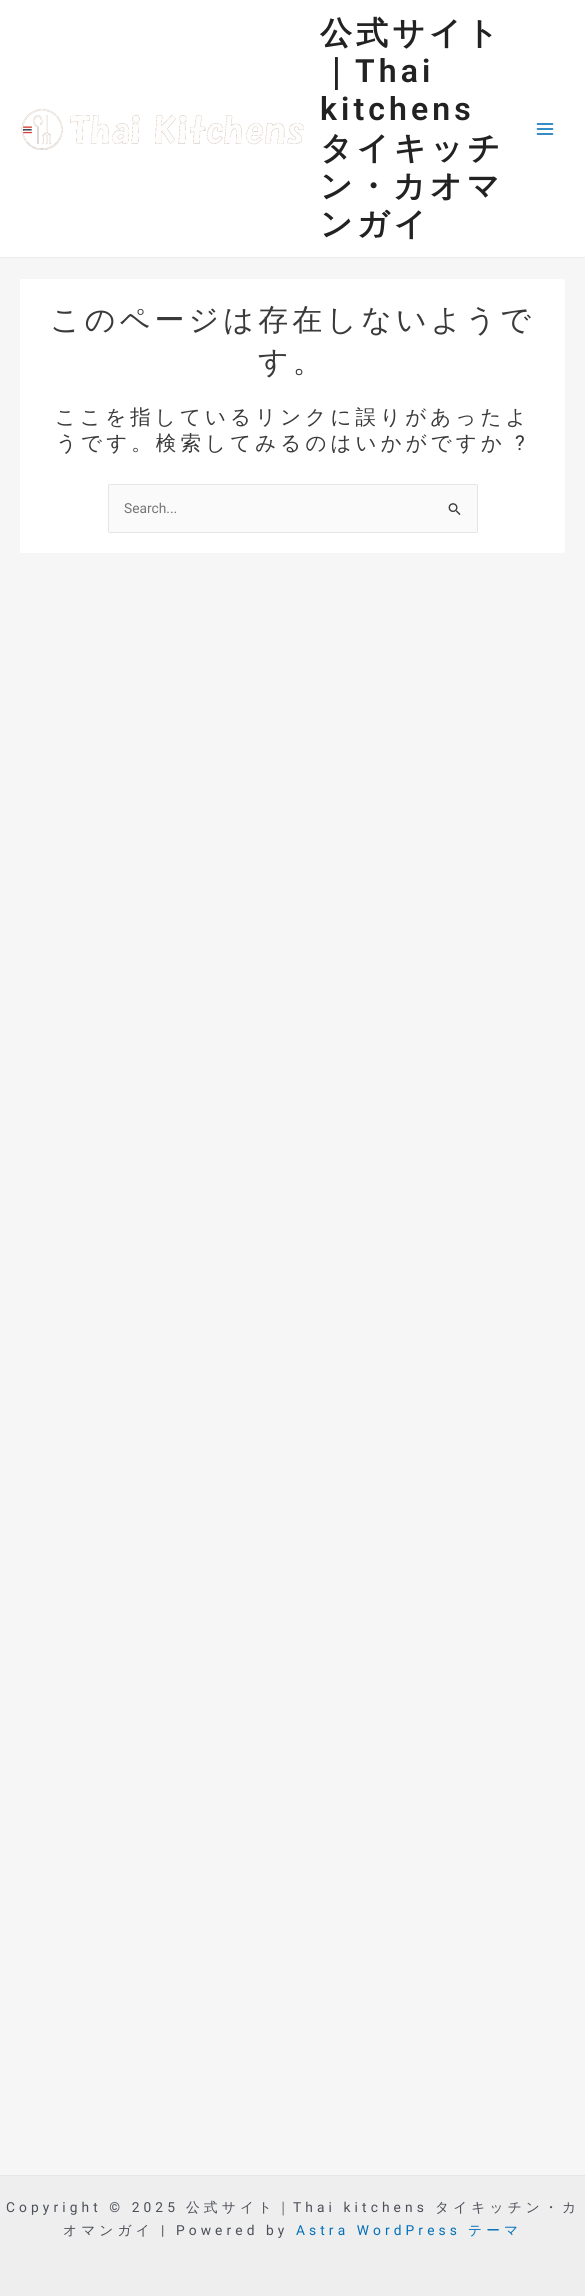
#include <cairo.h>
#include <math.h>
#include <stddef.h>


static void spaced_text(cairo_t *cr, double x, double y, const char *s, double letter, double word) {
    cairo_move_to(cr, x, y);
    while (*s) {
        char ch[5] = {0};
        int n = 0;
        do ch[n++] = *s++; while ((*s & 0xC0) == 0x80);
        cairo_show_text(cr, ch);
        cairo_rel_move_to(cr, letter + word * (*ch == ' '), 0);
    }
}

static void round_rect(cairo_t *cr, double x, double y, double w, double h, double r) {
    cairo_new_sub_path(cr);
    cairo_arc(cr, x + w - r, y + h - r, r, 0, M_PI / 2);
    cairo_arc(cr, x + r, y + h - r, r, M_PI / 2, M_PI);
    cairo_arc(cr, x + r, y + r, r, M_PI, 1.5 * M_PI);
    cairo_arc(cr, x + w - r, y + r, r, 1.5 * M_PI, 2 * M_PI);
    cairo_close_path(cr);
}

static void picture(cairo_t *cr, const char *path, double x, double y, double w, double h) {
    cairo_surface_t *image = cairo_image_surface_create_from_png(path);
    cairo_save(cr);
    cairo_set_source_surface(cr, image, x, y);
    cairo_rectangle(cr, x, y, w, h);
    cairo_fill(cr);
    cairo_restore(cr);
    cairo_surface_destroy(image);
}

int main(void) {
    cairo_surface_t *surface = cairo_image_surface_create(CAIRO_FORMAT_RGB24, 585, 2296);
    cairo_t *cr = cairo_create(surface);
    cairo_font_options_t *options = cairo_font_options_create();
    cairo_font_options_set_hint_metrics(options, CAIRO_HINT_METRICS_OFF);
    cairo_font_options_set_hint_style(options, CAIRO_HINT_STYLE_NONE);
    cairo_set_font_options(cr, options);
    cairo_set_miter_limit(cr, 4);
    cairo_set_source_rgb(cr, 0.961, 0.961, 0.961);
    cairo_paint(cr);
    cairo_set_source_rgb(cr, 1, 1, 1);
    cairo_rectangle(cr, 0, 0, 585, 257);
    cairo_fill(cr);
    cairo_set_source_rgb(cr, 0.918, 0.918, 0.918);
    cairo_rectangle(cr, 0, 257, 585, 1);
    cairo_fill(cr);
    picture(cr, "img1.png", 21, 109, 283, 41);
    cairo_select_font_face(cr, "WenQuanYi Zen Hei", CAIRO_FONT_SLANT_NORMAL, CAIRO_FONT_WEIGHT_BOLD);
    cairo_set_font_size(cr, 32);
    cairo_set_source_rgb(cr, 0.133, 0.133, 0.133);
    spaced_text(cr, 320, 44, "公式サイト", 4.1, 0);
    spaced_text(cr, 320, 82, "｜", 4.1, 0);
    cairo_select_font_face(cr, "Roboto SemiBold", CAIRO_FONT_SLANT_NORMAL, CAIRO_FONT_WEIGHT_NORMAL);
    spaced_text(cr, 355, 82, "Thai", 4.1, 0);
    spaced_text(cr, 320, 120, "kitchens", 4.1, 0);
    cairo_select_font_face(cr, "WenQuanYi Zen Hei", CAIRO_FONT_SLANT_NORMAL, CAIRO_FONT_WEIGHT_BOLD);
    spaced_text(cr, 320, 159, "タイキッチ", 4.1, 0);
    spaced_text(cr, 320, 197, "ン・カオマ", 4.1, 0);
    spaced_text(cr, 320, 235, "ンガイ", 4.1, 0);
    picture(cr, "img2.png", 536, 123, 18, 12);
    cairo_set_source_rgb(cr, 1, 1, 1);
    cairo_rectangle(cr, 20, 279, 545, 274);
    cairo_fill(cr);
    cairo_select_font_face(cr, "WenQuanYi Zen Hei Medium", CAIRO_FONT_SLANT_NORMAL, CAIRO_FONT_WEIGHT_NORMAL);
    cairo_set_font_size(cr, 30);
    cairo_set_source_rgb(cr, 0.227, 0.227, 0.227);
    spaced_text(cr, 50, 330, "このページは存在しないようで", 4.1, 0);
    spaced_text(cr, 258, 372, "す。", 4.1, 0);
    cairo_set_font_size(cr, 20.5);
    spaced_text(cr, 55, 424, "ここを指しているリンクに誤りがあったよ", 4.1, 0);
    spaced_text(cr, 56, 450, "うです。検索してみるのはいかがですか", 4.1, 0);
    cairo_select_font_face(cr, "Roboto", CAIRO_FONT_SLANT_NORMAL, CAIRO_FONT_WEIGHT_NORMAL);
    spaced_text(cr, 515, 450, "?", 4.1, 0);
    cairo_set_source_rgb(cr, 0.98, 0.98, 0.98);
    round_rect(cr, 108.5, 484.5, 369, 48, 1.5);
    cairo_fill_preserve(cr);
    cairo_set_source_rgb(cr, 0.898, 0.898, 0.898);
    cairo_set_line_width(cr, 1);
    cairo_stroke(cr);
    cairo_set_font_size(cr, 13.75);
    cairo_set_source_rgb(cr, 0.459, 0.459, 0.459);
    cairo_move_to(cr, 124, 513);
    cairo_show_text(cr, "Search...");
    picture(cr, "img3.png", 448, 503, 13, 12);
    cairo_set_source_rgb(cr, 0.933, 0.933, 0.933);
    cairo_rectangle(cr, 0, 2176, 585, 120);
    cairo_fill(cr);
    cairo_set_source_rgb(cr, 0.898, 0.898, 0.898);
    cairo_rectangle(cr, 0, 2175, 585, 1);
    cairo_fill(cr);
    cairo_set_source_rgb(cr, 0.294, 0.31, 0.345);
    spaced_text(cr, 6, 2212, "Copyright © 2025", 4.1, 0);
    cairo_select_font_face(cr, "WenQuanYi Zen Hei Medium", CAIRO_FONT_SLANT_NORMAL, CAIRO_FONT_WEIGHT_NORMAL);
    spaced_text(cr, 186, 2212, "公式サイト｜", 4.1, 0);
    cairo_select_font_face(cr, "Roboto", CAIRO_FONT_SLANT_NORMAL, CAIRO_FONT_WEIGHT_NORMAL);
    spaced_text(cr, 293, 2212, "Thai kitchens", 4.1, 0);
    cairo_select_font_face(cr, "WenQuanYi Zen Hei Medium", CAIRO_FONT_SLANT_NORMAL, CAIRO_FONT_WEIGHT_NORMAL);
    spaced_text(cr, 435, 2212, "タイキッチン・カ", 4.1, 0);
    spaced_text(cr, 63, 2235, "オマンガイ", 4.1, 0);
    cairo_select_font_face(cr, "Roboto", CAIRO_FONT_SLANT_NORMAL, CAIRO_FONT_WEIGHT_NORMAL);
    spaced_text(cr, 161, 2235, "| Powered by", 4.1, 0);
    cairo_set_source_rgb(cr, 0.004, 0.439, 0.725);
    spaced_text(cr, 296, 2235, "Astra WordPress", 4.1, 0);
    cairo_select_font_face(cr, "WenQuanYi Zen Hei Medium", CAIRO_FONT_SLANT_NORMAL, CAIRO_FONT_WEIGHT_NORMAL);
    spaced_text(cr, 468, 2235, "テーマ", 4.1, 0);
    cairo_surface_write_to_png(surface, "page.png");
    cairo_font_options_destroy(options);
    cairo_destroy(cr);
    cairo_surface_destroy(surface);
    return 0;
}
